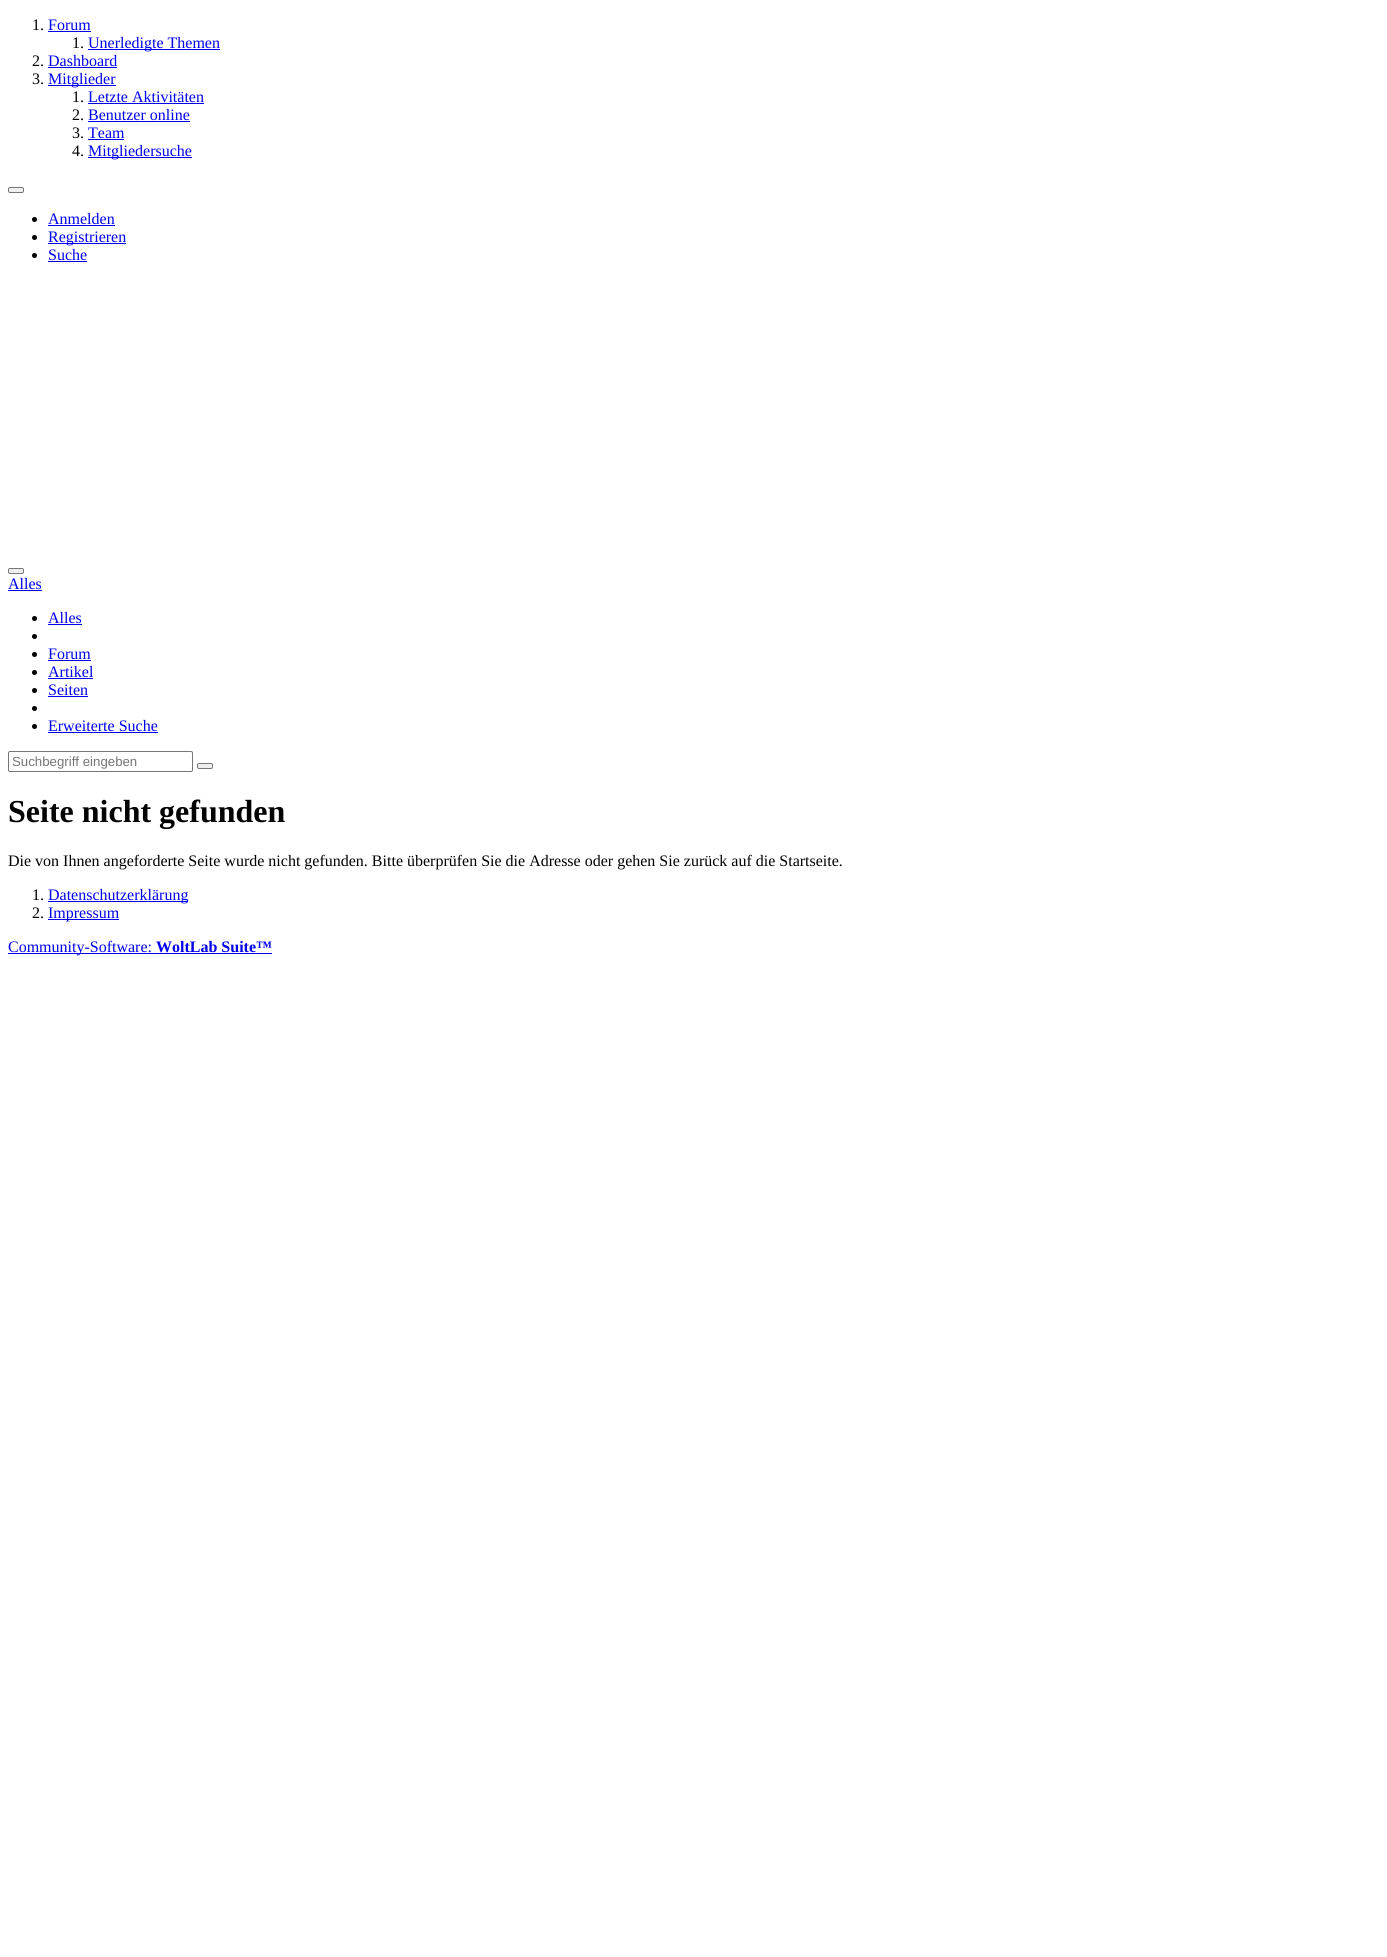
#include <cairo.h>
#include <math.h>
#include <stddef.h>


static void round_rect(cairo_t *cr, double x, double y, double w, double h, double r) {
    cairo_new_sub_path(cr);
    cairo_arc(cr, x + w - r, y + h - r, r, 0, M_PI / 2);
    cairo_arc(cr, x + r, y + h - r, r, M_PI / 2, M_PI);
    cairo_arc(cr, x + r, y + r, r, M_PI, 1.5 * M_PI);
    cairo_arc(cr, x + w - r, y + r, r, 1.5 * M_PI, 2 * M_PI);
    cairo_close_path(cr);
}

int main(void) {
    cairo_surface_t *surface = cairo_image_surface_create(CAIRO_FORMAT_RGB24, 1387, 1957);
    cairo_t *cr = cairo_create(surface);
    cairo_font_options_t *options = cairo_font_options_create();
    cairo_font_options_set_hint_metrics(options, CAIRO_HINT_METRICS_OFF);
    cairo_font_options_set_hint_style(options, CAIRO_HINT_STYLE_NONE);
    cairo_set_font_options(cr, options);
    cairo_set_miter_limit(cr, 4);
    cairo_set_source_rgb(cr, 1, 1, 1);
    cairo_paint(cr);
    cairo_select_font_face(cr, "Liberation Serif", CAIRO_FONT_SLANT_NORMAL, CAIRO_FONT_WEIGHT_NORMAL);
    cairo_set_font_size(cr, 16);
    cairo_set_source_rgb(cr, 0, 0, 0);
    cairo_move_to(cr, 32, 30);
    cairo_show_text(cr, "1.");
    cairo_set_source_rgb(cr, 0, 0, 0.933);
    cairo_move_to(cr, 48, 30);
    cairo_show_text(cr, "Forum");
    cairo_rectangle(cr, 48, 31, 43, 1);
    cairo_fill(cr);
    cairo_set_source_rgb(cr, 0, 0, 0);
    cairo_move_to(cr, 72, 48);
    cairo_show_text(cr, "1.");
    cairo_set_source_rgb(cr, 0, 0, 0.933);
    cairo_rectangle(cr, 88, 49, 132, 1);
    cairo_fill(cr);
    cairo_move_to(cr, 88, 48);
    cairo_show_text(cr, "Unerledigte Themen");
    cairo_set_source_rgb(cr, 0, 0, 0);
    cairo_move_to(cr, 32, 66);
    cairo_show_text(cr, "2.");
    cairo_set_source_rgb(cr, 0, 0, 0.933);
    cairo_move_to(cr, 48, 66);
    cairo_show_text(cr, "Dashboard");
    cairo_rectangle(cr, 48, 67, 69, 1);
    cairo_fill(cr);
    cairo_set_source_rgb(cr, 0, 0, 0);
    cairo_move_to(cr, 32, 84);
    cairo_show_text(cr, "3.");
    cairo_set_source_rgb(cr, 0, 0, 0.933);
    cairo_rectangle(cr, 48, 85, 68, 1);
    cairo_fill(cr);
    cairo_move_to(cr, 48, 84);
    cairo_show_text(cr, "Mitglieder");
    cairo_set_source_rgb(cr, 0, 0, 0);
    cairo_move_to(cr, 72, 102);
    cairo_show_text(cr, "1.");
    cairo_set_source_rgb(cr, 0, 0, 0.933);
    cairo_move_to(cr, 88, 102);
    cairo_show_text(cr, "Letzte Aktivitäten");
    cairo_rectangle(cr, 88, 103, 116, 1);
    cairo_fill(cr);
    cairo_set_source_rgb(cr, 0, 0, 0);
    cairo_move_to(cr, 72, 120);
    cairo_show_text(cr, "2.");
    cairo_set_source_rgb(cr, 0, 0, 0.933);
    cairo_move_to(cr, 88, 120);
    cairo_show_text(cr, "Benutzer online");
    cairo_rectangle(cr, 88, 121, 102, 1);
    cairo_fill(cr);
    cairo_set_source_rgb(cr, 0, 0, 0);
    cairo_move_to(cr, 72, 138);
    cairo_show_text(cr, "3.");
    cairo_set_source_rgb(cr, 0, 0, 0.933);
    cairo_move_to(cr, 88, 138);
    cairo_show_text(cr, "Team");
    cairo_rectangle(cr, 88, 139, 36, 1);
    cairo_fill(cr);
    cairo_set_source_rgb(cr, 0, 0, 0);
    cairo_move_to(cr, 72, 156);
    cairo_show_text(cr, "4.");
    cairo_set_source_rgb(cr, 0, 0, 0.933);
    cairo_rectangle(cr, 88, 157, 104, 1);
    cairo_fill(cr);
    cairo_move_to(cr, 88, 156);
    cairo_show_text(cr, "Mitgliedersuche");
    cairo_set_source_rgb(cr, 0.937, 0.937, 0.937);
    round_rect(cr, 8.5, 187.5, 15, 5, 1.5);
    cairo_fill_preserve(cr);
    cairo_set_source_rgb(cr, 0.463, 0.463, 0.463);
    cairo_set_line_width(cr, 1);
    cairo_stroke(cr);
    cairo_set_source_rgb(cr, 0, 0, 0);
    cairo_arc(cr, 34.5, 219.5, 2.5, 0, 2 * M_PI);
    cairo_fill(cr);
    cairo_set_source_rgb(cr, 0, 0, 0.933);
    cairo_move_to(cr, 48, 224);
    cairo_show_text(cr, "Anmelden");
    cairo_rectangle(cr, 48, 225, 67, 1);
    cairo_fill(cr);
    cairo_set_source_rgb(cr, 0, 0, 0);
    cairo_arc(cr, 34.5, 237.5, 2.5, 0, 2 * M_PI);
    cairo_fill(cr);
    cairo_set_source_rgb(cr, 0, 0, 0.933);
    cairo_rectangle(cr, 48, 243, 78, 1);
    cairo_fill(cr);
    cairo_move_to(cr, 48, 242);
    cairo_show_text(cr, "Registrieren");
    cairo_set_source_rgb(cr, 0, 0, 0);
    cairo_new_path(cr);
    cairo_arc(cr, 34.5, 255.5, 2.5, 0, 2 * M_PI);
    cairo_fill(cr);
    cairo_set_source_rgb(cr, 0, 0, 0.933);
    cairo_move_to(cr, 48, 260);
    cairo_show_text(cr, "Suche");
    cairo_rectangle(cr, 48, 261, 39, 1);
    cairo_fill(cr);
    cairo_set_source_rgb(cr, 0.937, 0.937, 0.937);
    round_rect(cr, 8.5, 568.5, 15, 5, 1.5);
    cairo_fill_preserve(cr);
    cairo_set_source_rgb(cr, 0.463, 0.463, 0.463);
    cairo_stroke(cr);
    cairo_set_source_rgb(cr, 0, 0, 0.933);
    cairo_move_to(cr, 8, 589);
    cairo_show_text(cr, "Alles");
    cairo_rectangle(cr, 8, 590, 34, 1);
    cairo_fill(cr);
    cairo_set_source_rgb(cr, 0, 0, 0);
    cairo_arc(cr, 34.5, 618.5, 2.5, 0, 2 * M_PI);
    cairo_fill(cr);
    cairo_set_source_rgb(cr, 0, 0, 0.933);
    cairo_move_to(cr, 48, 623);
    cairo_show_text(cr, "Alles");
    cairo_rectangle(cr, 48, 624, 34, 1);
    cairo_fill(cr);
    cairo_set_source_rgb(cr, 0, 0, 0);
    cairo_arc(cr, 34.5, 636.5, 2.5, 0, 2 * M_PI);
    cairo_fill(cr);
    cairo_arc(cr, 34.5, 654.5, 2.5, 0, 2 * M_PI);
    cairo_fill(cr);
    cairo_set_source_rgb(cr, 0, 0, 0.933);
    cairo_move_to(cr, 48, 659);
    cairo_show_text(cr, "Forum");
    cairo_rectangle(cr, 48, 660, 43, 1);
    cairo_fill(cr);
    cairo_set_source_rgb(cr, 0, 0, 0);
    cairo_arc(cr, 34.5, 672.5, 2.5, 0, 2 * M_PI);
    cairo_fill(cr);
    cairo_set_source_rgb(cr, 0, 0, 0.933);
    cairo_move_to(cr, 48, 677);
    cairo_show_text(cr, "Artikel");
    cairo_rectangle(cr, 48, 678, 45, 1);
    cairo_fill(cr);
    cairo_set_source_rgb(cr, 0, 0, 0);
    cairo_arc(cr, 34.5, 690.5, 2.5, 0, 2 * M_PI);
    cairo_fill(cr);
    cairo_set_source_rgb(cr, 0, 0, 0.933);
    cairo_move_to(cr, 48, 695);
    cairo_show_text(cr, "Seiten");
    cairo_rectangle(cr, 48, 696, 40, 1);
    cairo_fill(cr);
    cairo_set_source_rgb(cr, 0, 0, 0);
    cairo_arc(cr, 34.5, 708.5, 2.5, 0, 2 * M_PI);
    cairo_fill(cr);
    cairo_arc(cr, 34.5, 726.5, 2.5, 0, 2 * M_PI);
    cairo_fill(cr);
    cairo_set_source_rgb(cr, 0, 0, 0.933);
    cairo_move_to(cr, 48, 731);
    cairo_show_text(cr, "Erweiterte Suche");
    cairo_rectangle(cr, 48, 732, 110, 1);
    cairo_fill(cr);
    round_rect(cr, 8.5, 751.5, 184, 20, 1.5);
    cairo_set_source_rgb(cr, 0.463, 0.463, 0.463);
    cairo_stroke(cr);
    cairo_select_font_face(cr, "Liberation Sans", CAIRO_FONT_SLANT_NORMAL, CAIRO_FONT_WEIGHT_NORMAL);
    cairo_set_font_size(cr, 13.25);
    cairo_set_source_rgb(cr, 0.459, 0.459, 0.459);
    cairo_move_to(cr, 12, 766);
    cairo_show_text(cr, "Suchbegriff eingeben");
    cairo_set_source_rgb(cr, 0.937, 0.937, 0.937);
    round_rect(cr, 197.5, 763.5, 15, 5, 1.5);
    cairo_fill_preserve(cr);
    cairo_set_source_rgb(cr, 0.463, 0.463, 0.463);
    cairo_stroke(cr);
    cairo_select_font_face(cr, "Liberation Serif", CAIRO_FONT_SLANT_NORMAL, CAIRO_FONT_WEIGHT_BOLD);
    cairo_set_font_size(cr, 32);
    cairo_set_source_rgb(cr, 0, 0, 0);
    cairo_move_to(cr, 8, 822);
    cairo_show_text(cr, "Seite nicht gefunden");
    cairo_select_font_face(cr, "Liberation Serif", CAIRO_FONT_SLANT_NORMAL, CAIRO_FONT_WEIGHT_NORMAL);
    cairo_set_font_size(cr, 16);
    cairo_move_to(cr, 8, 866);
    cairo_show_text(cr, "Die von Ihnen angeforderte Seite wurde nicht gefunden. Bitte überprüfen Sie die Adresse oder gehen Sie zurück auf die Startseite.");
    cairo_move_to(cr, 32, 900);
    cairo_show_text(cr, "1.");
    cairo_set_source_rgb(cr, 0, 0, 0.933);
    cairo_rectangle(cr, 48, 901, 140, 1);
    cairo_fill(cr);
    cairo_move_to(cr, 48, 900);
    cairo_show_text(cr, "Datenschutzerklärung");
    cairo_set_source_rgb(cr, 0, 0, 0);
    cairo_move_to(cr, 32, 918);
    cairo_show_text(cr, "2.");
    cairo_set_source_rgb(cr, 0, 0, 0.933);
    cairo_rectangle(cr, 48, 919, 71, 1);
    cairo_fill(cr);
    cairo_move_to(cr, 48, 918);
    cairo_show_text(cr, "Impressum");
    cairo_rectangle(cr, 8, 953, 264, 1);
    cairo_fill(cr);
    cairo_move_to(cr, 8, 952);
    cairo_show_text(cr, "Community-Software:");
    cairo_select_font_face(cr, "Liberation Serif", CAIRO_FONT_SLANT_NORMAL, CAIRO_FONT_WEIGHT_BOLD);
    cairo_move_to(cr, 156, 952);
    cairo_show_text(cr, "WoltLab Suite™");
    cairo_surface_write_to_png(surface, "page.png");
    cairo_font_options_destroy(options);
    cairo_destroy(cr);
    cairo_surface_destroy(surface);
    return 0;
}
